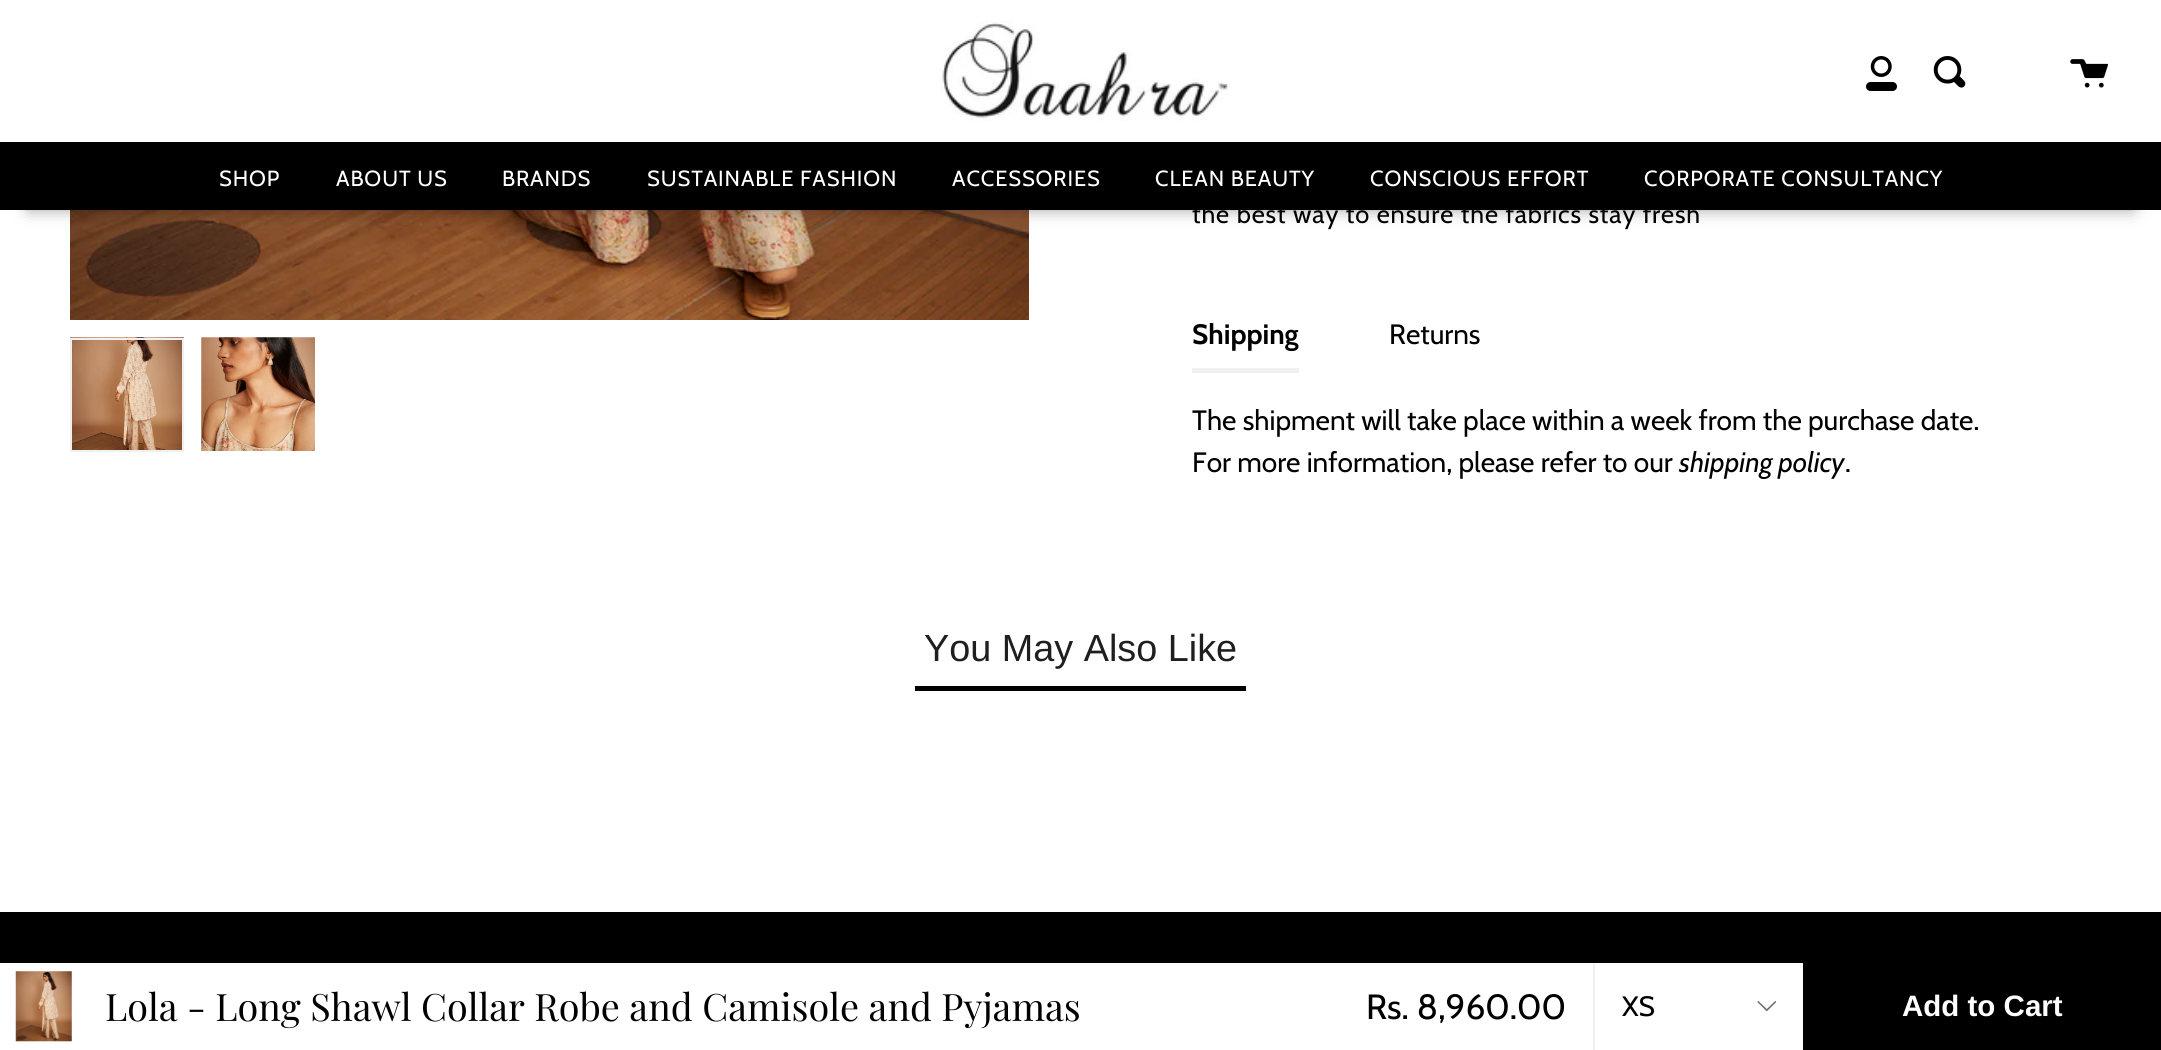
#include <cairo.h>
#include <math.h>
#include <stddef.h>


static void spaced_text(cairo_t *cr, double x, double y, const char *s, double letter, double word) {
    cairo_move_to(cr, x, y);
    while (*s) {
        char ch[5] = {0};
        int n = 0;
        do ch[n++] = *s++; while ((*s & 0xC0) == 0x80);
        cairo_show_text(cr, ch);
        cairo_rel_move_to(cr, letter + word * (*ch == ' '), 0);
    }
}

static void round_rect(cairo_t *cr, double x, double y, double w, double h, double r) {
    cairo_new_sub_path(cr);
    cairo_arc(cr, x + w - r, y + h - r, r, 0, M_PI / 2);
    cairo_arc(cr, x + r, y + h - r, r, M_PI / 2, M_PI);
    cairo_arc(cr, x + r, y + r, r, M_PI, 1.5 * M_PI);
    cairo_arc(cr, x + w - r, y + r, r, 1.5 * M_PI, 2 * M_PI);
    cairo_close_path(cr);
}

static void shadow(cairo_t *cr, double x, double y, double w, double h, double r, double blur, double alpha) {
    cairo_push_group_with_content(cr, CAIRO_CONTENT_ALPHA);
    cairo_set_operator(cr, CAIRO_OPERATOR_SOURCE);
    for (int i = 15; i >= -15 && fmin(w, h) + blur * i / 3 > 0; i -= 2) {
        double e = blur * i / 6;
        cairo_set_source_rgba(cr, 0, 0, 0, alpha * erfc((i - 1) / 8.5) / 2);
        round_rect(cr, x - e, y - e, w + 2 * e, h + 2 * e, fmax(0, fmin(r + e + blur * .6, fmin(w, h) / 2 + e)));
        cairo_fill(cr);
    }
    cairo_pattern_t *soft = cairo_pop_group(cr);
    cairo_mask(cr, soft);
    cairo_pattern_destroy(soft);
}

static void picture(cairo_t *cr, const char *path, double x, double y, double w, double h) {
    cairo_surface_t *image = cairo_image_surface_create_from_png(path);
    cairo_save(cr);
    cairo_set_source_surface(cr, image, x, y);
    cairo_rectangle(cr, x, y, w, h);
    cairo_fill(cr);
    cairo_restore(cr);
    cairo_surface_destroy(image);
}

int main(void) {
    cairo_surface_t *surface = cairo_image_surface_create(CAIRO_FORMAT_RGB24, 2161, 1050);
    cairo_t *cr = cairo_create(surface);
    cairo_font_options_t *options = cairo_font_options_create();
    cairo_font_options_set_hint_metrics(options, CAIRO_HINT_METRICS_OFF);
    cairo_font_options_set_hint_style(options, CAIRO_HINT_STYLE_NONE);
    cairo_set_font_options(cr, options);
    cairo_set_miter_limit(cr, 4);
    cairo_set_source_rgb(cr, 1, 1, 1);
    cairo_paint(cr);
    picture(cr, "img1.png", 940, 21, 290, 100);
    picture(cr, "img2.png", 1866, 56, 31, 35);
    picture(cr, "img3.png", 1933, 56, 33, 32);
    picture(cr, "img4.png", 2070, 59, 38, 29);
    picture(cr, "img5.png", 70, 210, 959, 110);
    cairo_set_source_rgb(cr, 0, 0, 0);
    shadow(cr, 30, 198, 2102, 9, 0, 9, 0.5);
    cairo_set_source_rgb(cr, 0, 0, 0);
    cairo_rectangle(cr, 0, 142, 2161, 68);
    cairo_fill(cr);
    cairo_select_font_face(cr, "Cabin", CAIRO_FONT_SLANT_NORMAL, CAIRO_FONT_WEIGHT_NORMAL);
    cairo_set_font_size(cr, 21.9);
    cairo_set_source_rgb(cr, 1, 1, 1);
    spaced_text(cr, 219, 186, "SHOP", 0.9, 0);
    spaced_text(cr, 336, 186, "ABOUT US", 0.9, 0);
    spaced_text(cr, 502, 186, "BRANDS", 0.9, 0);
    spaced_text(cr, 647, 186, "SUSTAINABLE FASHION", 0.9, 0);
    spaced_text(cr, 952, 186, "ACCESSORIES", 0.9, 0);
    spaced_text(cr, 1155, 186, "CLEAN BEAUTY", 0.9, 0);
    spaced_text(cr, 1370, 186, "CONSCIOUS EFFORT", 0.9, 0);
    spaced_text(cr, 1644, 186, "CORPORATE CONSULTANCY", 0.9, 0);
    picture(cr, "img6.png", 70, 337, 114, 113);
    cairo_rectangle(cr, 71, 339, 112, 112);
    cairo_set_source_rgb(cr, 0.941, 0.941, 0.941);
    cairo_stroke(cr);
    picture(cr, "img7.png", 201, 337, 114, 114);
    cairo_set_font_size(cr, 25.4);
    cairo_set_source_rgb(cr, 0, 0, 0);
    spaced_text(cr, 1192, 223, "the best way to ensure the fabrics stay fresh", 0.9, 0);
    cairo_set_source_rgb(cr, 0.941, 0.941, 0.941);
    cairo_rectangle(cr, 1192, 368, 107, 5);
    cairo_fill(cr);
    cairo_select_font_face(cr, "Cabin", CAIRO_FONT_SLANT_NORMAL, CAIRO_FONT_WEIGHT_BOLD);
    cairo_set_font_size(cr, 28);
    cairo_set_source_rgb(cr, 0, 0, 0);
    cairo_move_to(cr, 1192, 344);
    cairo_show_text(cr, "Shipping");
    cairo_select_font_face(cr, "Cabin", CAIRO_FONT_SLANT_NORMAL, CAIRO_FONT_WEIGHT_NORMAL);
    cairo_move_to(cr, 1389, 344);
    cairo_show_text(cr, "Returns");
    cairo_move_to(cr, 1192, 430);
    cairo_show_text(cr, "The shipment will take place within a week from the purchase date.");
    cairo_move_to(cr, 1192, 472);
    cairo_show_text(cr, "For more information, please refer to our");
    cairo_select_font_face(cr, "Cabin", CAIRO_FONT_SLANT_ITALIC, CAIRO_FONT_WEIGHT_NORMAL);
    cairo_move_to(cr, 1679, 472);
    cairo_show_text(cr, "shipping policy");
    cairo_select_font_face(cr, "Cabin", CAIRO_FONT_SLANT_NORMAL, CAIRO_FONT_WEIGHT_NORMAL);
    cairo_move_to(cr, 1845, 472);
    cairo_show_text(cr, ".");
    picture(cr, "img8.png", 15, 971, 57, 71);
    cairo_select_font_face(cr, "Playfair Display", CAIRO_FONT_SLANT_NORMAL, CAIRO_FONT_WEIGHT_NORMAL);
    cairo_set_font_size(cr, 37.8);
    cairo_move_to(cr, 105, 1021);
    cairo_show_text(cr, "Lola - Long Shawl Collar Robe and Camisole and Pyjamas");
    cairo_select_font_face(cr, "Cabin", CAIRO_FONT_SLANT_NORMAL, CAIRO_FONT_WEIGHT_NORMAL);
    cairo_set_font_size(cr, 35);
    cairo_move_to(cr, 1366, 1019);
    cairo_show_text(cr, "Rs. 8,960.00");
    cairo_set_source_rgb(cr, 0.941, 0.941, 0.941);
    cairo_rectangle(cr, 1593, 963, 2, 87);
    cairo_fill(cr);
    picture(cr, "img9.png", 1757, 1001, 19, 11);
    cairo_set_font_size(cr, 28);
    cairo_set_source_rgb(cr, 0, 0, 0);
    cairo_move_to(cr, 1622, 1016);
    cairo_show_text(cr, "XS");
    cairo_rectangle(cr, 1803, 963, 358, 87);
    cairo_fill(cr);
    cairo_select_font_face(cr, "Liberation Sans", CAIRO_FONT_SLANT_NORMAL, CAIRO_FONT_WEIGHT_BOLD);
    cairo_set_font_size(cr, 29.5);
    cairo_set_source_rgb(cr, 1, 1, 1);
    cairo_move_to(cr, 1902, 1016);
    cairo_show_text(cr, "Add to Cart");
    cairo_set_source_rgb(cr, 0, 0, 0);
    cairo_rectangle(cr, 915, 686, 331, 5);
    cairo_fill(cr);
    cairo_select_font_face(cr, "Liberation Sans", CAIRO_FONT_SLANT_NORMAL, CAIRO_FONT_WEIGHT_NORMAL);
    cairo_set_font_size(cr, 37.8);
    cairo_set_source_rgb(cr, 0.122, 0.122, 0.122);
    cairo_move_to(cr, 924, 661);
    cairo_show_text(cr, "You May Also Like");
    cairo_set_source_rgb(cr, 0, 0, 0);
    cairo_rectangle(cr, 0, 912, 2161, 51);
    cairo_fill(cr);
    cairo_surface_write_to_png(surface, "page.png");
    cairo_font_options_destroy(options);
    cairo_destroy(cr);
    cairo_surface_destroy(surface);
    return 0;
}
